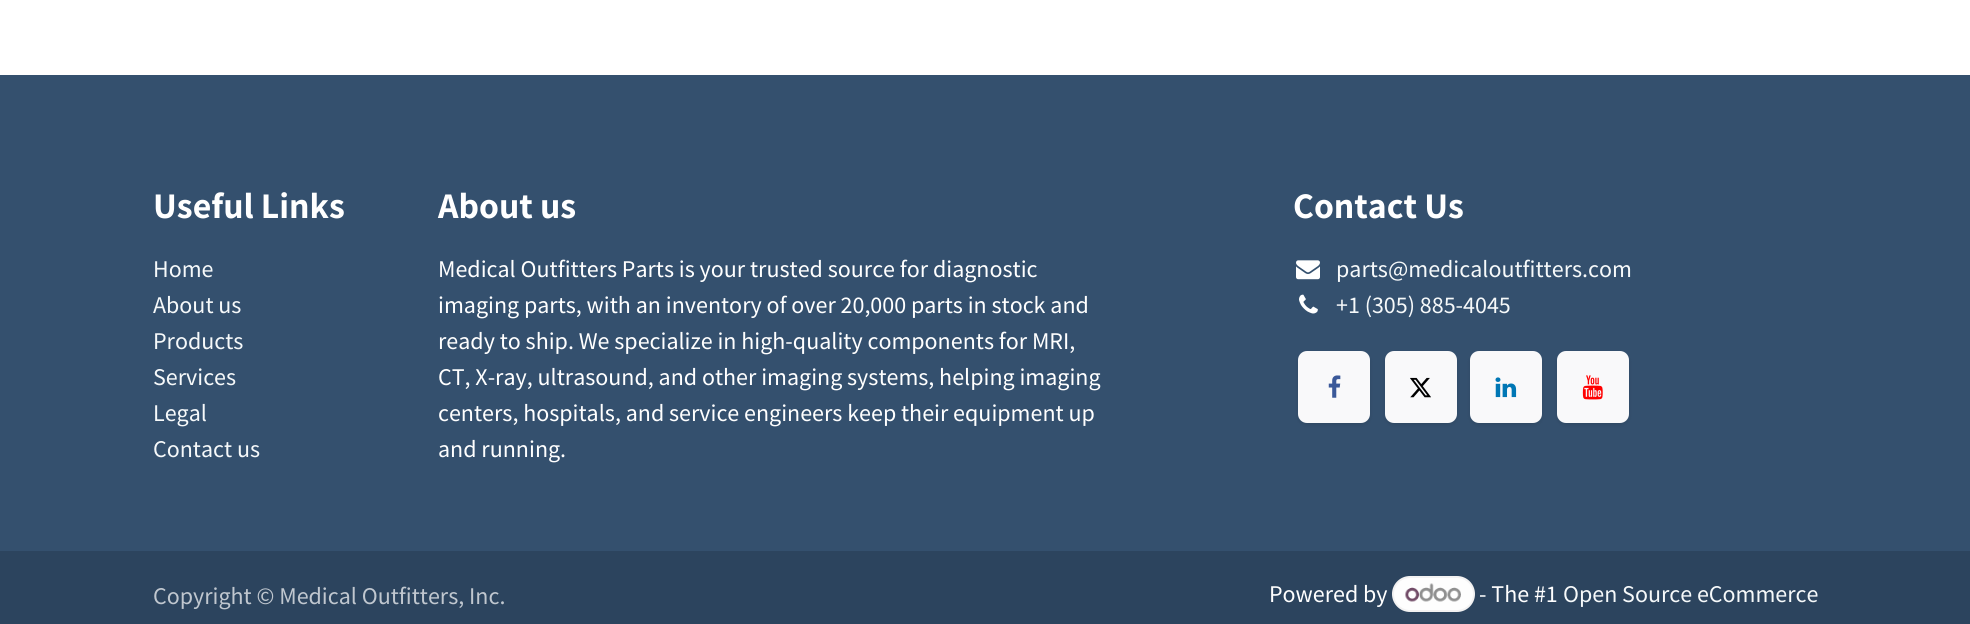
#include <cairo.h>
#include <math.h>
#include <stddef.h>


static void round_rect(cairo_t *cr, double x, double y, double w, double h, double r) {
    cairo_new_sub_path(cr);
    cairo_arc(cr, x + w - r, y + h - r, r, 0, M_PI / 2);
    cairo_arc(cr, x + r, y + h - r, r, M_PI / 2, M_PI);
    cairo_arc(cr, x + r, y + r, r, M_PI, 1.5 * M_PI);
    cairo_arc(cr, x + w - r, y + r, r, 1.5 * M_PI, 2 * M_PI);
    cairo_close_path(cr);
}

static void shadow(cairo_t *cr, double x, double y, double w, double h, double r, double blur, double alpha) {
    cairo_push_group_with_content(cr, CAIRO_CONTENT_ALPHA);
    cairo_set_operator(cr, CAIRO_OPERATOR_SOURCE);
    for (int i = 15; i >= -15 && fmin(w, h) + blur * i / 3 > 0; i -= 2) {
        double e = blur * i / 6;
        cairo_set_source_rgba(cr, 0, 0, 0, alpha * erfc((i - 1) / 8.5) / 2);
        round_rect(cr, x - e, y - e, w + 2 * e, h + 2 * e, fmax(0, fmin(r + e + blur * .6, fmin(w, h) / 2 + e)));
        cairo_fill(cr);
    }
    cairo_pattern_t *soft = cairo_pop_group(cr);
    cairo_mask(cr, soft);
    cairo_pattern_destroy(soft);
}

static void picture(cairo_t *cr, const char *path, double x, double y, double w, double h) {
    cairo_surface_t *image = cairo_image_surface_create_from_png(path);
    cairo_save(cr);
    cairo_set_source_surface(cr, image, x, y);
    cairo_rectangle(cr, x, y, w, h);
    cairo_fill(cr);
    cairo_restore(cr);
    cairo_surface_destroy(image);
}

int main(void) {
    cairo_surface_t *surface = cairo_image_surface_create(CAIRO_FORMAT_RGB24, 1970, 624);
    cairo_t *cr = cairo_create(surface);
    cairo_font_options_t *options = cairo_font_options_create();
    cairo_font_options_set_hint_metrics(options, CAIRO_HINT_METRICS_OFF);
    cairo_font_options_set_hint_style(options, CAIRO_HINT_STYLE_NONE);
    cairo_set_font_options(cr, options);
    cairo_set_miter_limit(cr, 4);
    cairo_set_source_rgb(cr, 1, 1, 1);
    cairo_paint(cr);
    cairo_set_source_rgb(cr, 0.204, 0.314, 0.431);
    cairo_rectangle(cr, 0, 75, 1970, 476);
    cairo_fill(cr);
    cairo_select_font_face(cr, "Assistant", CAIRO_FONT_SLANT_NORMAL, CAIRO_FONT_WEIGHT_BOLD);
    cairo_set_font_size(cr, 36);
    cairo_set_source_rgb(cr, 1, 1, 1);
    cairo_move_to(cr, 153, 218);
    cairo_show_text(cr, "Useful Links");
    cairo_select_font_face(cr, "Source Sans Pro", CAIRO_FONT_SLANT_NORMAL, CAIRO_FONT_WEIGHT_NORMAL);
    cairo_set_font_size(cr, 24);
    cairo_set_source_rgb(cr, 0.961, 0.973, 0.98);
    cairo_move_to(cr, 153, 277);
    cairo_show_text(cr, "Home");
    cairo_move_to(cr, 153, 313);
    cairo_show_text(cr, "About us");
    cairo_move_to(cr, 153, 349);
    cairo_show_text(cr, "Products");
    cairo_move_to(cr, 153, 385);
    cairo_show_text(cr, "Services");
    cairo_move_to(cr, 153, 421);
    cairo_show_text(cr, "Legal");
    cairo_move_to(cr, 153, 457);
    cairo_show_text(cr, "Contact us");
    cairo_select_font_face(cr, "Assistant", CAIRO_FONT_SLANT_NORMAL, CAIRO_FONT_WEIGHT_BOLD);
    cairo_set_font_size(cr, 36);
    cairo_set_source_rgb(cr, 1, 1, 1);
    cairo_move_to(cr, 438, 218);
    cairo_show_text(cr, "About us");
    cairo_select_font_face(cr, "Source Sans Pro", CAIRO_FONT_SLANT_NORMAL, CAIRO_FONT_WEIGHT_NORMAL);
    cairo_set_font_size(cr, 24);
    cairo_move_to(cr, 438, 277);
    cairo_show_text(cr, "Medical Outfitters Parts is your trusted source for diagnostic");
    cairo_move_to(cr, 438, 313);
    cairo_show_text(cr, "imaging parts, with an inventory of over 20,000 parts in stock and");
    cairo_move_to(cr, 438, 349);
    cairo_show_text(cr, "ready to ship. We specialize in high-quality components for MRI,");
    cairo_move_to(cr, 438, 385);
    cairo_show_text(cr, "CT, X-ray, ultrasound, and other imaging systems, helping imaging");
    cairo_move_to(cr, 438, 421);
    cairo_show_text(cr, "centers, hospitals, and service engineers keep their equipment up");
    cairo_move_to(cr, 438, 457);
    cairo_show_text(cr, "and running.");
    cairo_select_font_face(cr, "Assistant", CAIRO_FONT_SLANT_NORMAL, CAIRO_FONT_WEIGHT_BOLD);
    cairo_set_font_size(cr, 36);
    cairo_move_to(cr, 1293, 218);
    cairo_show_text(cr, "Contact Us");
    picture(cr, "img1.png", 1296, 260, 24, 20);
    cairo_select_font_face(cr, "Source Sans Pro", CAIRO_FONT_SLANT_NORMAL, CAIRO_FONT_WEIGHT_NORMAL);
    cairo_set_font_size(cr, 24);
    cairo_set_source_rgb(cr, 0.961, 0.973, 0.98);
    cairo_move_to(cr, 1336, 277);
    cairo_show_text(cr, "parts@medicaloutfitters.com");
    picture(cr, "img2.png", 1299, 294, 19, 20);
    cairo_move_to(cr, 1336, 313);
    cairo_show_text(cr, "+1 (305) 885-4045");
    cairo_set_source_rgb(cr, 0, 0, 0);
    shadow(cr, 1298, 353, 72, 72, 9, 2, 0.1);
    cairo_set_source_rgb(cr, 0.973, 0.976, 0.98);
    round_rect(cr, 1298, 351, 72, 72, 9);
    cairo_fill(cr);
    picture(cr, "img3.png", 1328, 375, 13, 23);
    cairo_set_source_rgb(cr, 0, 0, 0);
    shadow(cr, 1385, 353, 72, 72, 9, 2, 0.1);
    cairo_set_source_rgb(cr, 0.973, 0.976, 0.98);
    round_rect(cr, 1385, 351, 72, 72, 9);
    cairo_fill(cr);
    picture(cr, "img4.png", 1410, 377, 21, 21);
    cairo_set_source_rgb(cr, 0, 0, 0);
    shadow(cr, 1470, 353, 72, 72, 9, 2, 0.1);
    cairo_set_source_rgb(cr, 0.973, 0.976, 0.98);
    round_rect(cr, 1470, 351, 72, 72, 9);
    cairo_fill(cr);
    picture(cr, "img5.png", 1495, 377, 22, 21);
    cairo_set_source_rgb(cr, 0, 0, 0);
    shadow(cr, 1557, 353, 72, 72, 9, 2, 0.1);
    cairo_set_source_rgb(cr, 0.973, 0.976, 0.98);
    round_rect(cr, 1557, 351, 72, 72, 9);
    cairo_fill(cr);
    picture(cr, "img6.png", 1582, 375, 21, 25);
    cairo_set_source_rgb(cr, 0.173, 0.267, 0.369);
    cairo_rectangle(cr, 0, 551, 1970, 73);
    cairo_fill(cr);
    cairo_set_source_rgb(cr, 0.753, 0.78, 0.812);
    cairo_move_to(cr, 153, 604);
    cairo_show_text(cr, "Copyright © Medical Outfitters, Inc.");
    cairo_set_source_rgb(cr, 1, 1, 1);
    cairo_move_to(cr, 1269, 602);
    cairo_show_text(cr, "Powered by");
    cairo_set_source_rgb(cr, 0.996, 0.996, 0.996);
    round_rect(cr, 1393, 577, 81, 34, 17);
    cairo_fill_preserve(cr);
    cairo_set_source_rgb(cr, 0.953, 0.949, 0.949);
    cairo_stroke(cr);
    picture(cr, "img7.png", 1405, 583, 56, 19);
    cairo_set_source_rgb(cr, 1, 1, 1);
    cairo_move_to(cr, 1479, 602);
    cairo_show_text(cr, "- The #1");
    cairo_set_source_rgb(cr, 0.961, 0.973, 0.98);
    cairo_move_to(cr, 1563, 602);
    cairo_show_text(cr, "Open Source eCommerce");
    cairo_surface_write_to_png(surface, "page.png");
    cairo_font_options_destroy(options);
    cairo_destroy(cr);
    cairo_surface_destroy(surface);
    return 0;
}
